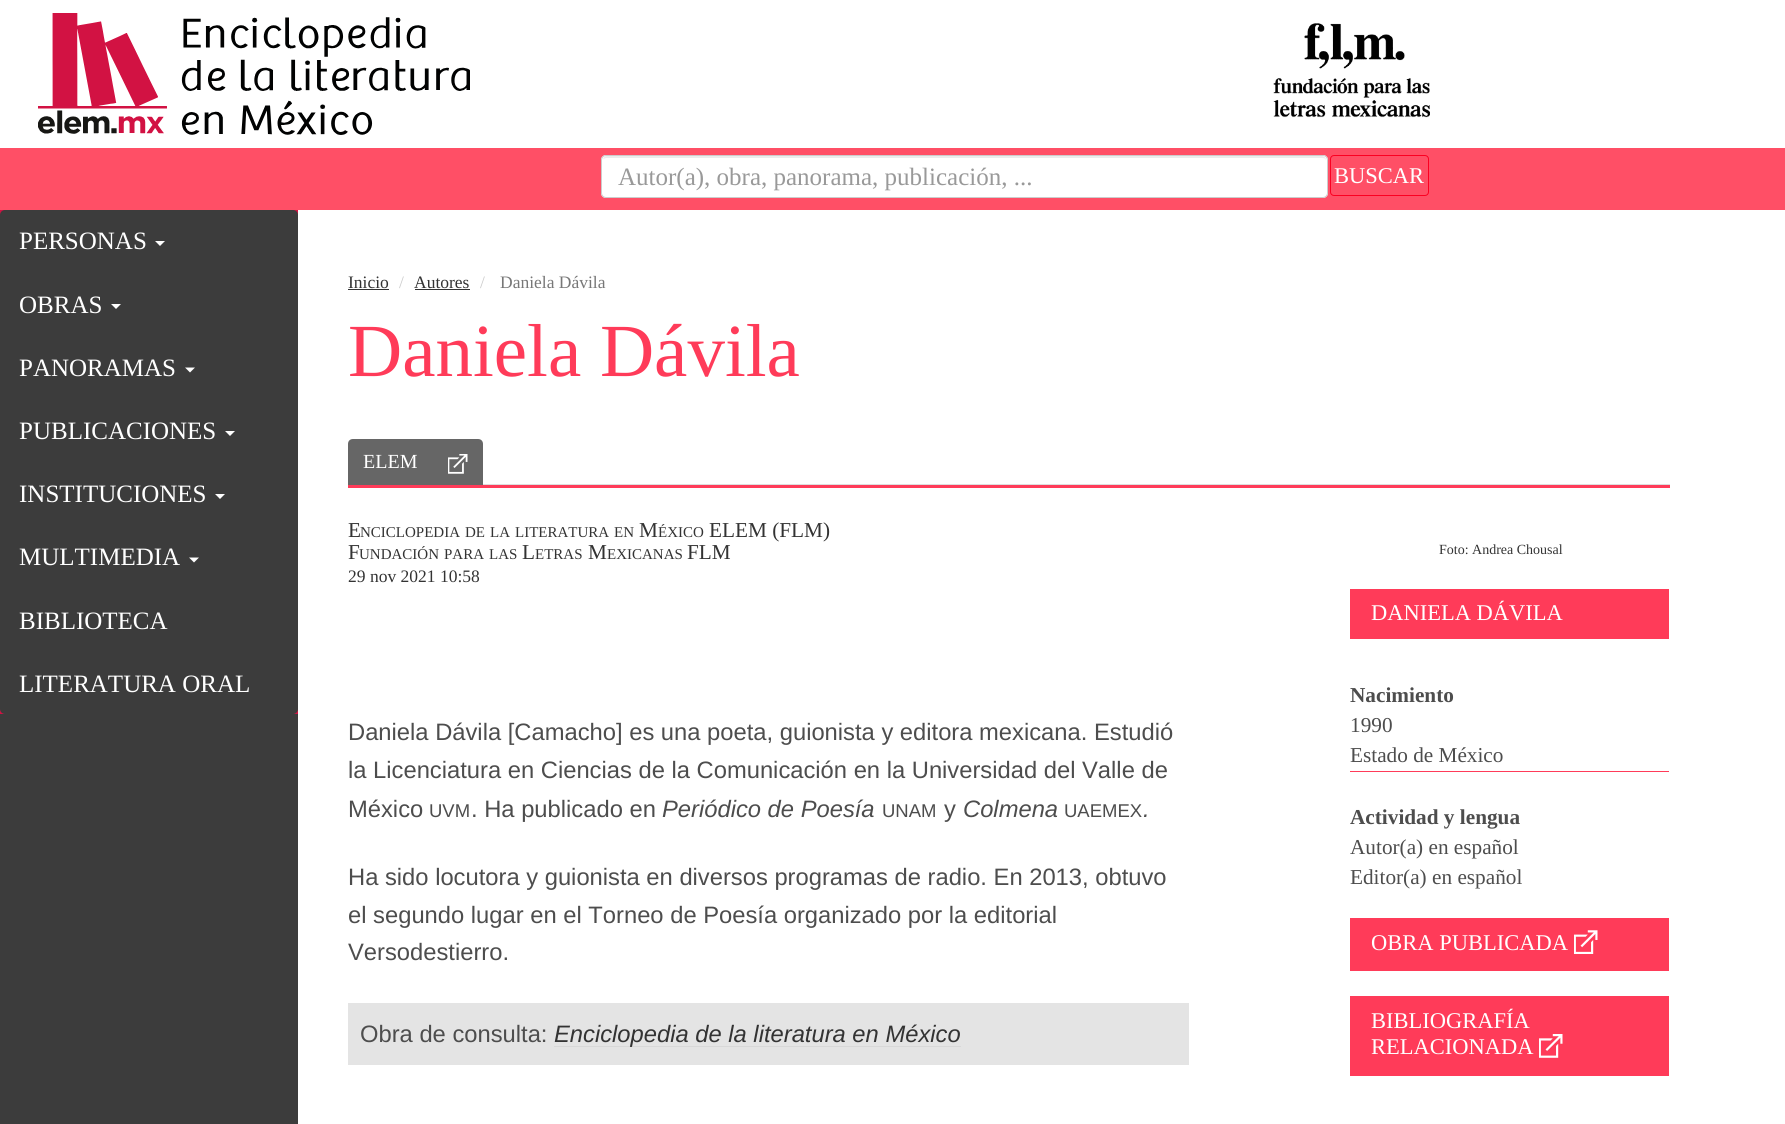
#include <cairo.h>
#include <math.h>
#include <stddef.h>


static void round_rect(cairo_t *cr, double x, double y, double w, double h, double r) {
    cairo_new_sub_path(cr);
    cairo_arc(cr, x + w - r, y + h - r, r, 0, M_PI / 2);
    cairo_arc(cr, x + r, y + h - r, r, M_PI / 2, M_PI);
    cairo_arc(cr, x + r, y + r, r, M_PI, 1.5 * M_PI);
    cairo_arc(cr, x + w - r, y + r, r, 1.5 * M_PI, 2 * M_PI);
    cairo_close_path(cr);
}

static void picture(cairo_t *cr, const char *path, double x, double y, double w, double h) {
    cairo_surface_t *image = cairo_image_surface_create_from_png(path);
    cairo_save(cr);
    cairo_set_source_surface(cr, image, x, y);
    cairo_rectangle(cr, x, y, w, h);
    cairo_fill(cr);
    cairo_restore(cr);
    cairo_surface_destroy(image);
}

int main(void) {
    cairo_surface_t *surface = cairo_image_surface_create(CAIRO_FORMAT_RGB24, 1785, 1124);
    cairo_t *cr = cairo_create(surface);
    cairo_font_options_t *options = cairo_font_options_create();
    cairo_font_options_set_hint_metrics(options, CAIRO_HINT_METRICS_OFF);
    cairo_font_options_set_hint_style(options, CAIRO_HINT_STYLE_NONE);
    cairo_set_font_options(cr, options);
    cairo_set_miter_limit(cr, 4);
    cairo_set_source_rgb(cr, 1, 1, 1);
    cairo_paint(cr);
    picture(cr, "img1.png", 38, 13, 432, 122);
    picture(cr, "img2.png", 1273, 23, 157, 95);
    cairo_set_source_rgb(cr, 1, 0.31, 0.4);
    cairo_rectangle(cr, 0, 148, 1785, 62);
    cairo_fill(cr);
    cairo_set_source_rgb(cr, 1, 1, 1);
    round_rect(cr, 601, 155, 727, 43, 5);
    cairo_fill(cr);
    cairo_set_source_rgb(cr, 0.925, 0.925, 0.925);
    cairo_new_path(cr);
    cairo_move_to(cr, 606, 158);
    cairo_line_to(cr, 1322, 158);
    cairo_curve_to(cr, 1325, 158, 1326, 159, 1326, 161);
    cairo_line_to(cr, 1326, 160);
    cairo_curve_to(cr, 1326, 158, 1324, 156, 1322, 156);
    cairo_line_to(cr, 607, 156);
    cairo_curve_to(cr, 605, 156, 604, 157, 603, 159);
    cairo_close_path(cr);
    cairo_fill(cr);
    round_rect(cr, 601.5, 155.5, 726, 42, 4.5);
    cairo_set_source_rgb(cr, 0.8, 0.8, 0.8);
    cairo_set_line_width(cr, 1);
    cairo_stroke(cr);
    cairo_select_font_face(cr, "Liberation Serif", CAIRO_FONT_SLANT_NORMAL, CAIRO_FONT_WEIGHT_NORMAL);
    cairo_set_font_size(cr, 25);
    cairo_set_source_rgb(cr, 0.6, 0.6, 0.6);
    cairo_move_to(cr, 618, 185);
    cairo_show_text(cr, "Autor(a), obra, panorama, publicación, ...");
    round_rect(cr, 1330.5, 155.5, 98, 40, 3.5);
    cairo_set_source_rgb(cr, 0.984, 0, 0.129);
    cairo_stroke(cr);
    cairo_set_font_size(cr, 22.5);
    cairo_set_source_rgb(cr, 1, 1, 1);
    cairo_move_to(cr, 1334, 183);
    cairo_show_text(cr, "BUSCAR");
    cairo_set_source_rgb(cr, 0.235, 0.235, 0.235);
    cairo_rectangle(cr, 0, 714, 298, 410);
    cairo_fill(cr);
    cairo_set_source_rgb(cr, 0.824, 0.071, 0.263);
    cairo_rectangle(cr, 0, 210, 298, 504);
    cairo_fill(cr);
    cairo_set_source_rgb(cr, 0.235, 0.235, 0.235);
    round_rect(cr, 0, 210, 298, 504, 5);
    cairo_fill(cr);
    cairo_set_font_size(cr, 25);
    cairo_set_source_rgb(cr, 1, 1, 1);
    cairo_move_to(cr, 19, 249);
    cairo_show_text(cr, "PERSONAS");
    cairo_new_path(cr);
    cairo_move_to(cr, 155, 241);
    cairo_line_to(cr, 165, 241);
    cairo_line_to(cr, 160, 246);
    cairo_close_path(cr);
    cairo_fill(cr);
    cairo_move_to(cr, 19, 313);
    cairo_show_text(cr, "OBRAS");
    cairo_new_path(cr);
    cairo_move_to(cr, 111, 304);
    cairo_line_to(cr, 121, 304);
    cairo_line_to(cr, 116, 309);
    cairo_close_path(cr);
    cairo_fill(cr);
    cairo_move_to(cr, 19, 376);
    cairo_show_text(cr, "PANORAMAS");
    cairo_new_path(cr);
    cairo_move_to(cr, 185, 367.5);
    cairo_line_to(cr, 195, 367.5);
    cairo_line_to(cr, 190, 372.5);
    cairo_close_path(cr);
    cairo_fill(cr);
    cairo_move_to(cr, 19, 439);
    cairo_show_text(cr, "PUBLICACIONES");
    cairo_new_path(cr);
    cairo_move_to(cr, 225, 431);
    cairo_line_to(cr, 235, 431);
    cairo_line_to(cr, 230, 436);
    cairo_close_path(cr);
    cairo_fill(cr);
    cairo_move_to(cr, 19, 502);
    cairo_show_text(cr, "INSTITUCIONES");
    cairo_new_path(cr);
    cairo_move_to(cr, 215, 494);
    cairo_line_to(cr, 225, 494);
    cairo_line_to(cr, 220, 499);
    cairo_close_path(cr);
    cairo_fill(cr);
    cairo_move_to(cr, 19, 565);
    cairo_show_text(cr, "MULTIMEDIA");
    cairo_new_path(cr);
    cairo_move_to(cr, 189, 557.5);
    cairo_line_to(cr, 199, 557.5);
    cairo_line_to(cr, 194, 562.5);
    cairo_close_path(cr);
    cairo_fill(cr);
    cairo_move_to(cr, 19, 629);
    cairo_show_text(cr, "BIBLIOTECA");
    cairo_move_to(cr, 19, 692);
    cairo_show_text(cr, "LITERATURA ORAL");
    cairo_set_font_size(cr, 17.5);
    cairo_set_source_rgb(cr, 0.2, 0.2, 0.2);
    cairo_move_to(cr, 348, 288);
    cairo_show_text(cr, "Inicio");
    cairo_rectangle(cr, 348, 289, 41, 1);
    cairo_fill(cr);
    cairo_set_source_rgb(cr, 0.8, 0.8, 0.8);
    cairo_move_to(cr, 399, 288);
    cairo_show_text(cr, "/");
    cairo_set_source_rgb(cr, 0.2, 0.2, 0.2);
    cairo_move_to(cr, 414, 288);
    cairo_show_text(cr, "Autores");
    cairo_rectangle(cr, 415, 289, 55, 1);
    cairo_fill(cr);
    cairo_set_source_rgb(cr, 0.8, 0.8, 0.8);
    cairo_move_to(cr, 480, 288);
    cairo_show_text(cr, "/");
    cairo_set_source_rgb(cr, 0.467, 0.467, 0.467);
    cairo_move_to(cr, 500, 288);
    cairo_show_text(cr, "Daniela Dávila");
    cairo_set_font_size(cr, 75);
    cairo_set_source_rgb(cr, 1, 0.231, 0.349);
    cairo_move_to(cr, 348, 376);
    cairo_show_text(cr, "Daniela Dávila");
    cairo_rectangle(cr, 348, 485, 1322, 3);
    cairo_fill(cr);
    cairo_set_source_rgb(cr, 0.867, 0.867, 0.867);
    cairo_rectangle(cr, 483, 484, 1187, 1);
    cairo_fill(cr);
    cairo_set_source_rgb(cr, 0.4, 0.4, 0.4);
    cairo_new_path(cr);
    cairo_move_to(cr, 353, 439);
    cairo_line_to(cr, 433, 439);
    cairo_line_to(cr, 433, 485);
    cairo_line_to(cr, 348, 485);
    cairo_line_to(cr, 348, 444);
    cairo_curve_to(cr, 348, 441, 350, 439, 353, 439);
    cairo_close_path(cr);
    cairo_fill(cr);
    cairo_set_font_size(cr, 20);
    cairo_set_source_rgb(cr, 1, 1, 1);
    cairo_move_to(cr, 363, 468);
    cairo_show_text(cr, "ELEM");
    cairo_set_source_rgb(cr, 0.4, 0.4, 0.4);
    cairo_new_path(cr);
    cairo_move_to(cr, 433, 439);
    cairo_line_to(cr, 478, 439);
    cairo_curve_to(cr, 481, 439, 483, 441, 483, 444);
    cairo_line_to(cr, 483, 485);
    cairo_line_to(cr, 433, 485);
    cairo_close_path(cr);
    cairo_fill(cr);
    picture(cr, "img3.png", 448, 454, 20, 20);
    cairo_set_font_size(cr, 21.25);
    cairo_set_source_rgb(cr, 0.2, 0.2, 0.2);
    cairo_move_to(cr, 348, 537);
    cairo_show_text(cr, "E");
    cairo_set_font_size(cr, 15);
    cairo_move_to(cr, 360, 537);
    cairo_show_text(cr, "NCICLOPEDIA");
    cairo_move_to(cr, 465, 537);
    cairo_show_text(cr, "DE");
    cairo_move_to(cr, 490, 537);
    cairo_show_text(cr, "LA");
    cairo_move_to(cr, 515, 537);
    cairo_show_text(cr, "LITERATURA");
    cairo_move_to(cr, 614, 537);
    cairo_show_text(cr, "EN");
    cairo_set_font_size(cr, 21.25);
    cairo_move_to(cr, 639, 537);
    cairo_show_text(cr, "M");
    cairo_set_font_size(cr, 15);
    cairo_move_to(cr, 658, 537);
    cairo_show_text(cr, "ÉXICO");
    cairo_set_font_size(cr, 21.25);
    cairo_move_to(cr, 709, 537);
    cairo_show_text(cr, "ELEM (FLM)");
    cairo_move_to(cr, 348, 559);
    cairo_show_text(cr, "F");
    cairo_set_font_size(cr, 15);
    cairo_move_to(cr, 359, 559);
    cairo_show_text(cr, "UNDACIÓN");
    cairo_move_to(cr, 444, 559);
    cairo_show_text(cr, "PARA");
    cairo_move_to(cr, 489, 559);
    cairo_show_text(cr, "LAS");
    cairo_set_font_size(cr, 21.25);
    cairo_move_to(cr, 522, 559);
    cairo_show_text(cr, "L");
    cairo_set_font_size(cr, 15);
    cairo_move_to(cr, 535, 559);
    cairo_show_text(cr, "ETRAS");
    cairo_set_font_size(cr, 21.25);
    cairo_move_to(cr, 588, 559);
    cairo_show_text(cr, "M");
    cairo_set_font_size(cr, 15);
    cairo_move_to(cr, 607, 559);
    cairo_show_text(cr, "EXICANAS");
    cairo_set_font_size(cr, 21.25);
    cairo_move_to(cr, 687, 559);
    cairo_show_text(cr, "FLM");
    cairo_set_font_size(cr, 17.5);
    cairo_move_to(cr, 348, 582);
    cairo_show_text(cr, "29 nov 2021 10:58");
    cairo_select_font_face(cr, "Liberation Sans", CAIRO_FONT_SLANT_NORMAL, CAIRO_FONT_WEIGHT_NORMAL);
    cairo_set_font_size(cr, 23.75);
    cairo_set_source_rgb(cr, 0.302, 0.302, 0.302);
    cairo_move_to(cr, 348, 740);
    cairo_show_text(cr, "Daniela Dávila [Camacho] es una poeta, guionista y editora mexicana. Estudió");
    cairo_move_to(cr, 348, 778);
    cairo_show_text(cr, "la Licenciatura en Ciencias de la Comunicación en la Universidad del Valle de");
    cairo_move_to(cr, 348, 817);
    cairo_show_text(cr, "México");
    cairo_set_font_size(cr, 18.5);
    cairo_move_to(cr, 429, 817);
    cairo_show_text(cr, "UVM");
    cairo_set_font_size(cr, 23.75);
    cairo_move_to(cr, 471, 817);
    cairo_show_text(cr, ". Ha publicado en");
    cairo_select_font_face(cr, "Liberation Sans", CAIRO_FONT_SLANT_ITALIC, CAIRO_FONT_WEIGHT_NORMAL);
    cairo_move_to(cr, 662, 817);
    cairo_show_text(cr, "Periódico de Poesía");
    cairo_select_font_face(cr, "Liberation Sans", CAIRO_FONT_SLANT_NORMAL, CAIRO_FONT_WEIGHT_NORMAL);
    cairo_set_font_size(cr, 18.5);
    cairo_move_to(cr, 882, 817);
    cairo_show_text(cr, "UNAM");
    cairo_set_font_size(cr, 23.75);
    cairo_move_to(cr, 944, 817);
    cairo_show_text(cr, "y");
    cairo_select_font_face(cr, "Liberation Sans", CAIRO_FONT_SLANT_ITALIC, CAIRO_FONT_WEIGHT_NORMAL);
    cairo_move_to(cr, 963, 817);
    cairo_show_text(cr, "Colmena");
    cairo_select_font_face(cr, "Liberation Sans", CAIRO_FONT_SLANT_NORMAL, CAIRO_FONT_WEIGHT_NORMAL);
    cairo_set_font_size(cr, 18.5);
    cairo_move_to(cr, 1064, 817);
    cairo_show_text(cr, "UAEMEX");
    cairo_select_font_face(cr, "Liberation Sans", CAIRO_FONT_SLANT_ITALIC, CAIRO_FONT_WEIGHT_NORMAL);
    cairo_set_font_size(cr, 23.75);
    cairo_move_to(cr, 1143, 817);
    cairo_show_text(cr, ".");
    cairo_select_font_face(cr, "Liberation Sans", CAIRO_FONT_SLANT_NORMAL, CAIRO_FONT_WEIGHT_NORMAL);
    cairo_move_to(cr, 348, 885);
    cairo_show_text(cr, "Ha sido locutora y guionista en diversos programas de radio. En 2013, obtuvo");
    cairo_move_to(cr, 348, 923);
    cairo_show_text(cr, "el segundo lugar en el Torneo de Poesía organizado por la editorial");
    cairo_move_to(cr, 348, 960);
    cairo_show_text(cr, "Versodestierro.");
    cairo_set_source_rgb(cr, 0.894, 0.894, 0.894);
    cairo_rectangle(cr, 348, 1003, 841, 62);
    cairo_fill(cr);
    cairo_set_source_rgb(cr, 0.302, 0.302, 0.302);
    cairo_move_to(cr, 360, 1042);
    cairo_show_text(cr, "Obra de consulta:");
    cairo_set_source_rgb(cr, 0.847, 0.847, 0.847);
    cairo_rectangle(cr, 554, 1046, 407, 1);
    cairo_fill(cr);
    cairo_select_font_face(cr, "Liberation Sans", CAIRO_FONT_SLANT_ITALIC, CAIRO_FONT_WEIGHT_NORMAL);
    cairo_set_source_rgb(cr, 0.2, 0.2, 0.2);
    cairo_move_to(cr, 554, 1042);
    cairo_show_text(cr, "Enciclopedia de la literatura en México");
    cairo_select_font_face(cr, "Liberation Serif", CAIRO_FONT_SLANT_NORMAL, CAIRO_FONT_WEIGHT_NORMAL);
    cairo_set_font_size(cr, 14);
    cairo_move_to(cr, 1439, 554);
    cairo_show_text(cr, "Foto: Andrea Chousal");
    cairo_set_source_rgb(cr, 1, 0.231, 0.349);
    cairo_rectangle(cr, 1350, 589, 319, 50);
    cairo_fill(cr);
    cairo_set_font_size(cr, 22.5);
    cairo_set_source_rgb(cr, 1, 1, 1);
    cairo_move_to(cr, 1371, 620);
    cairo_show_text(cr, "DANIELA DÁVILA");
    cairo_set_source_rgb(cr, 1, 0.231, 0.349);
    cairo_rectangle(cr, 1350, 771, 319, 1);
    cairo_fill(cr);
    cairo_select_font_face(cr, "Liberation Serif", CAIRO_FONT_SLANT_NORMAL, CAIRO_FONT_WEIGHT_BOLD);
    cairo_set_font_size(cr, 21.25);
    cairo_set_source_rgb(cr, 0.302, 0.302, 0.302);
    cairo_move_to(cr, 1350, 702);
    cairo_show_text(cr, "Nacimiento");
    cairo_select_font_face(cr, "Liberation Serif", CAIRO_FONT_SLANT_NORMAL, CAIRO_FONT_WEIGHT_NORMAL);
    cairo_move_to(cr, 1350, 732);
    cairo_show_text(cr, "1990");
    cairo_move_to(cr, 1350, 762);
    cairo_show_text(cr, "Estado de México");
    cairo_select_font_face(cr, "Liberation Serif", CAIRO_FONT_SLANT_NORMAL, CAIRO_FONT_WEIGHT_BOLD);
    cairo_move_to(cr, 1350, 824);
    cairo_show_text(cr, "Actividad y lengua");
    cairo_select_font_face(cr, "Liberation Serif", CAIRO_FONT_SLANT_NORMAL, CAIRO_FONT_WEIGHT_NORMAL);
    cairo_move_to(cr, 1350, 854);
    cairo_show_text(cr, "Autor(a) en español");
    cairo_move_to(cr, 1350, 884);
    cairo_show_text(cr, "Editor(a) en español");
    cairo_set_source_rgb(cr, 1, 0.231, 0.349);
    cairo_rectangle(cr, 1350, 918, 319, 53);
    cairo_fill(cr);
    cairo_set_font_size(cr, 22.5);
    cairo_set_source_rgb(cr, 1, 1, 1);
    cairo_move_to(cr, 1371, 950);
    cairo_show_text(cr, "OBRA PUBLICADA");
    picture(cr, "img4.png", 1574, 930, 24, 24);
    cairo_set_source_rgb(cr, 1, 0.231, 0.349);
    cairo_rectangle(cr, 1350, 996, 319, 80);
    cairo_fill(cr);
    cairo_set_source_rgb(cr, 1, 1, 1);
    cairo_move_to(cr, 1371, 1028);
    cairo_show_text(cr, "BIBLIOGRAFÍA");
    cairo_move_to(cr, 1371, 1054);
    cairo_show_text(cr, "RELACIONADA");
    picture(cr, "img5.png", 1539, 1034, 24, 24);
    cairo_surface_write_to_png(surface, "page.png");
    cairo_font_options_destroy(options);
    cairo_destroy(cr);
    cairo_surface_destroy(surface);
    return 0;
}
